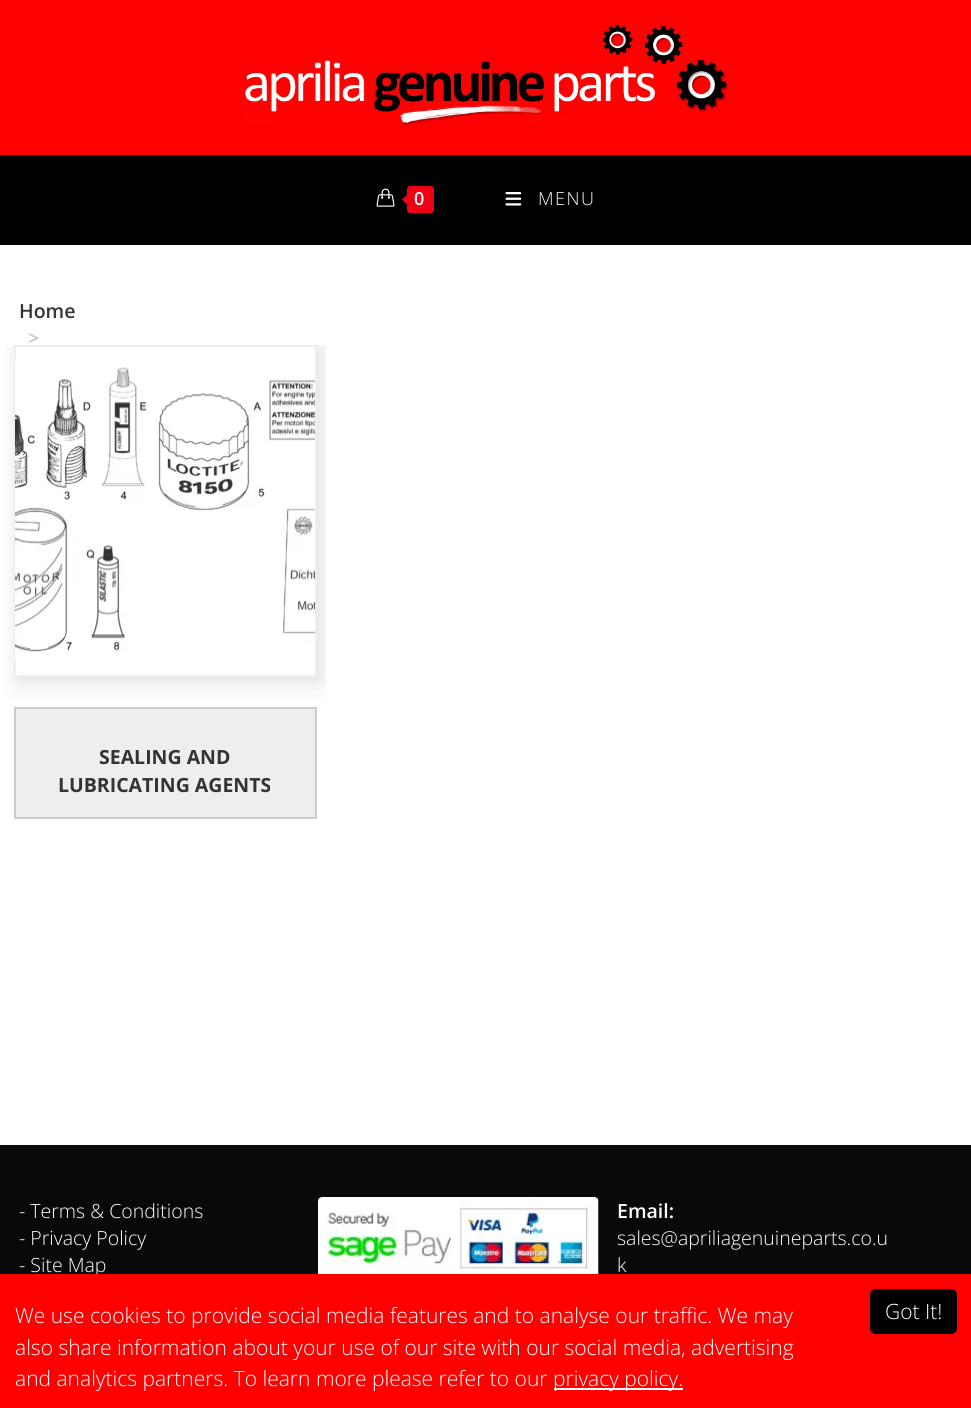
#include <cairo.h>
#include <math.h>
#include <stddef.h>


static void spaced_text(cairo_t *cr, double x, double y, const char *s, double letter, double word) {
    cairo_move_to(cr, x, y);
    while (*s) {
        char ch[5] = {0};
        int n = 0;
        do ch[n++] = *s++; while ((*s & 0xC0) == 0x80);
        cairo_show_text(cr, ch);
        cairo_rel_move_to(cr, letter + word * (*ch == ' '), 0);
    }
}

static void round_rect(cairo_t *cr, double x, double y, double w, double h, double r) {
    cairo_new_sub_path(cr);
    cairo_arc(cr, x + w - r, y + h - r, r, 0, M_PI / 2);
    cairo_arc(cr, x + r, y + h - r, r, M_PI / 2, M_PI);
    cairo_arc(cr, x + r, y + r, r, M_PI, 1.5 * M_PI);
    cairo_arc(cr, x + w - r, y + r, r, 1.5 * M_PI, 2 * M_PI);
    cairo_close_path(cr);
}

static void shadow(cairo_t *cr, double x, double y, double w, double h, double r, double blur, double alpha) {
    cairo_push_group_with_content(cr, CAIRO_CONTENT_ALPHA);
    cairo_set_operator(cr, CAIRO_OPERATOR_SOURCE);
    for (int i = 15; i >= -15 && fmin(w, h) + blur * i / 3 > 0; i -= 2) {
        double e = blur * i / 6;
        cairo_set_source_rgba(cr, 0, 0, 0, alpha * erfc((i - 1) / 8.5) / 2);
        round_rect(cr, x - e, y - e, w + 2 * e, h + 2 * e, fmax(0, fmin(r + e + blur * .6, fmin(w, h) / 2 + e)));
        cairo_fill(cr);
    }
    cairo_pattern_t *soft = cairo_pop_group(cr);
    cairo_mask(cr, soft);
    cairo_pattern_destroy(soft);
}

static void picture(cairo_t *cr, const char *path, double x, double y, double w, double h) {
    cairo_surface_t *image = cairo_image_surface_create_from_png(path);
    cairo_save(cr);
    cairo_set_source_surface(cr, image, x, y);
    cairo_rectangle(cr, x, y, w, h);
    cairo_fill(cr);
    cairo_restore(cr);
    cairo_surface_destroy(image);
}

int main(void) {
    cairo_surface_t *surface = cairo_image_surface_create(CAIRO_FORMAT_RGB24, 971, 1408);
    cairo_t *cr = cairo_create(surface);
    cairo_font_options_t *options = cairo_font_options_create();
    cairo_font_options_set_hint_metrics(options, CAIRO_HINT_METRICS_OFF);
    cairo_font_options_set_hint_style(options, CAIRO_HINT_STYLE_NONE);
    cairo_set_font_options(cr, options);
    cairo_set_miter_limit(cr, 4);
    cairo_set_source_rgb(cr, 1, 1, 1);
    cairo_paint(cr);
    cairo_set_source_rgb(cr, 1, 0, 0);
    cairo_rectangle(cr, 0, 0, 971, 155);
    cairo_fill(cr);
    picture(cr, "img1.png", 245, 24, 483, 101);
    cairo_set_source_rgb(cr, 0, 0, 0);
    cairo_rectangle(cr, 0, 155, 971, 90);
    cairo_fill(cr);
    picture(cr, "img2.png", 376, 188, 19, 19);
    cairo_set_source_rgb(cr, 0.937, 0, 0.075);
    round_rect(cr, 407, 186, 27, 27, 3);
    cairo_fill(cr);
    cairo_new_path(cr);
    cairo_move_to(cr, 409.5, 192);
    cairo_line_to(cr, 409.5, 207);
    cairo_line_to(cr, 402, 199.5);
    cairo_close_path(cr);
    cairo_fill(cr);
    cairo_select_font_face(cr, "Open Sans SemiBold", CAIRO_FONT_SLANT_NORMAL, CAIRO_FONT_WEIGHT_NORMAL);
    cairo_set_font_size(cr, 18);
    cairo_set_source_rgb(cr, 1, 1, 1);
    spaced_text(cr, 414, 205, "0", 1.5, 0);
    picture(cr, "img3.png", 505, 192, 17, 14);
    cairo_select_font_face(cr, "Open Sans Light", CAIRO_FONT_SLANT_NORMAL, CAIRO_FONT_WEIGHT_NORMAL);
    spaced_text(cr, 538, 205, "MENU", 1.5, 0);
    cairo_select_font_face(cr, "Open Sans SemiBold", CAIRO_FONT_SLANT_NORMAL, CAIRO_FONT_WEIGHT_NORMAL);
    cairo_set_font_size(cr, 19.5);
    cairo_set_source_rgb(cr, 0.2, 0.2, 0.2);
    cairo_move_to(cr, 19, 318);
    cairo_show_text(cr, "Home");
    cairo_set_source_rgb(cr, 0.776, 0.776, 0.776);
    cairo_move_to(cr, 28, 345);
    cairo_show_text(cr, ">");
    cairo_save(cr);
    cairo_rectangle(cr, 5, 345, 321, 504);
    cairo_clip(cr);
    cairo_set_fill_rule(cr, CAIRO_FILL_RULE_EVEN_ODD);
    cairo_new_path(cr);
    cairo_move_to(cr, 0, 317);
    cairo_line_to(cr, 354, 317);
    cairo_line_to(cr, 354, 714);
    cairo_line_to(cr, 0, 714);
    cairo_close_path(cr);
    cairo_move_to(cr, 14, 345);
    cairo_line_to(cr, 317, 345);
    cairo_line_to(cr, 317, 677);
    cairo_line_to(cr, 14, 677);
    cairo_close_path(cr);
    cairo_clip(cr);
    cairo_set_source_rgb(cr, 0.867, 0.867, 0.867);
    shadow(cr, 18, 350, 303, 331, 0, 10.5, 1);
    cairo_restore(cr);
    cairo_rectangle(cr, 15, 346, 301, 330);
    cairo_set_source_rgb(cr, 0.933, 0.933, 0.933);
    cairo_stroke(cr);
    picture(cr, "img4.png", 15, 361, 300, 299);
    cairo_rectangle(cr, 15, 708, 301, 110);
    cairo_fill_preserve(cr);
    cairo_set_source_rgb(cr, 0.8, 0.8, 0.8);
    cairo_stroke(cr);
    cairo_select_font_face(cr, "Open Sans", CAIRO_FONT_SLANT_NORMAL, CAIRO_FONT_WEIGHT_BOLD);
    cairo_set_source_rgb(cr, 0.2, 0.2, 0.2);
    cairo_move_to(cr, 99, 764);
    cairo_show_text(cr, "SEALING AND");
    cairo_move_to(cr, 58, 792);
    cairo_show_text(cr, "LUBRICATING AGENTS");
    cairo_set_source_rgb(cr, 0.039, 0.039, 0.039);
    cairo_rectangle(cr, 0, 1145, 971, 129);
    cairo_fill(cr);
    cairo_select_font_face(cr, "Open Sans Light", CAIRO_FONT_SLANT_NORMAL, CAIRO_FONT_WEIGHT_NORMAL);
    cairo_set_source_rgb(cr, 1, 1, 1);
    cairo_move_to(cr, 19, 1218);
    cairo_show_text(cr, "- Terms & Conditions");
    cairo_move_to(cr, 19, 1245);
    cairo_show_text(cr, "- Privacy Policy");
    cairo_move_to(cr, 19, 1272);
    cairo_show_text(cr, "- Site Map");
    picture(cr, "img5.png", 318, 1197, 281, 77);
    cairo_select_font_face(cr, "Open Sans SemiBold", CAIRO_FONT_SLANT_NORMAL, CAIRO_FONT_WEIGHT_NORMAL);
    cairo_move_to(cr, 617, 1218);
    cairo_show_text(cr, "Email:");
    cairo_select_font_face(cr, "Open Sans Light", CAIRO_FONT_SLANT_NORMAL, CAIRO_FONT_WEIGHT_NORMAL);
    cairo_move_to(cr, 617, 1245);
    cairo_show_text(cr, "sales@apriliagenuineparts.co.u");
    cairo_move_to(cr, 617, 1272);
    cairo_show_text(cr, "k");
    cairo_set_source_rgb(cr, 1, 0, 0);
    cairo_rectangle(cr, 0, 1274, 971, 134);
    cairo_fill(cr);
    cairo_set_font_size(cr, 21);
    cairo_set_source_rgb(cr, 1, 1, 1);
    cairo_move_to(cr, 15, 1323);
    cairo_show_text(cr, "We use cookies to provide social media features and to analyse our traffic. We may");
    cairo_move_to(cr, 15, 1355);
    cairo_show_text(cr, "also share information about your use of our site with our social media, advertising");
    cairo_move_to(cr, 15, 1386);
    cairo_show_text(cr, "and analytics partners. To learn more please refer to our");
    cairo_rectangle(cr, 554, 1388, 129, 2);
    cairo_fill(cr);
    cairo_move_to(cr, 553, 1386);
    cairo_show_text(cr, "privacy policy.");
    cairo_set_source_rgb(cr, 0, 0, 0);
    round_rect(cr, 870, 1289, 87, 45, 6);
    cairo_fill(cr);
    cairo_set_source_rgb(cr, 1, 1, 1);
    cairo_move_to(cr, 885, 1319);
    cairo_show_text(cr, "Got It!");
    cairo_surface_write_to_png(surface, "page.png");
    cairo_font_options_destroy(options);
    cairo_destroy(cr);
    cairo_surface_destroy(surface);
    return 0;
}
